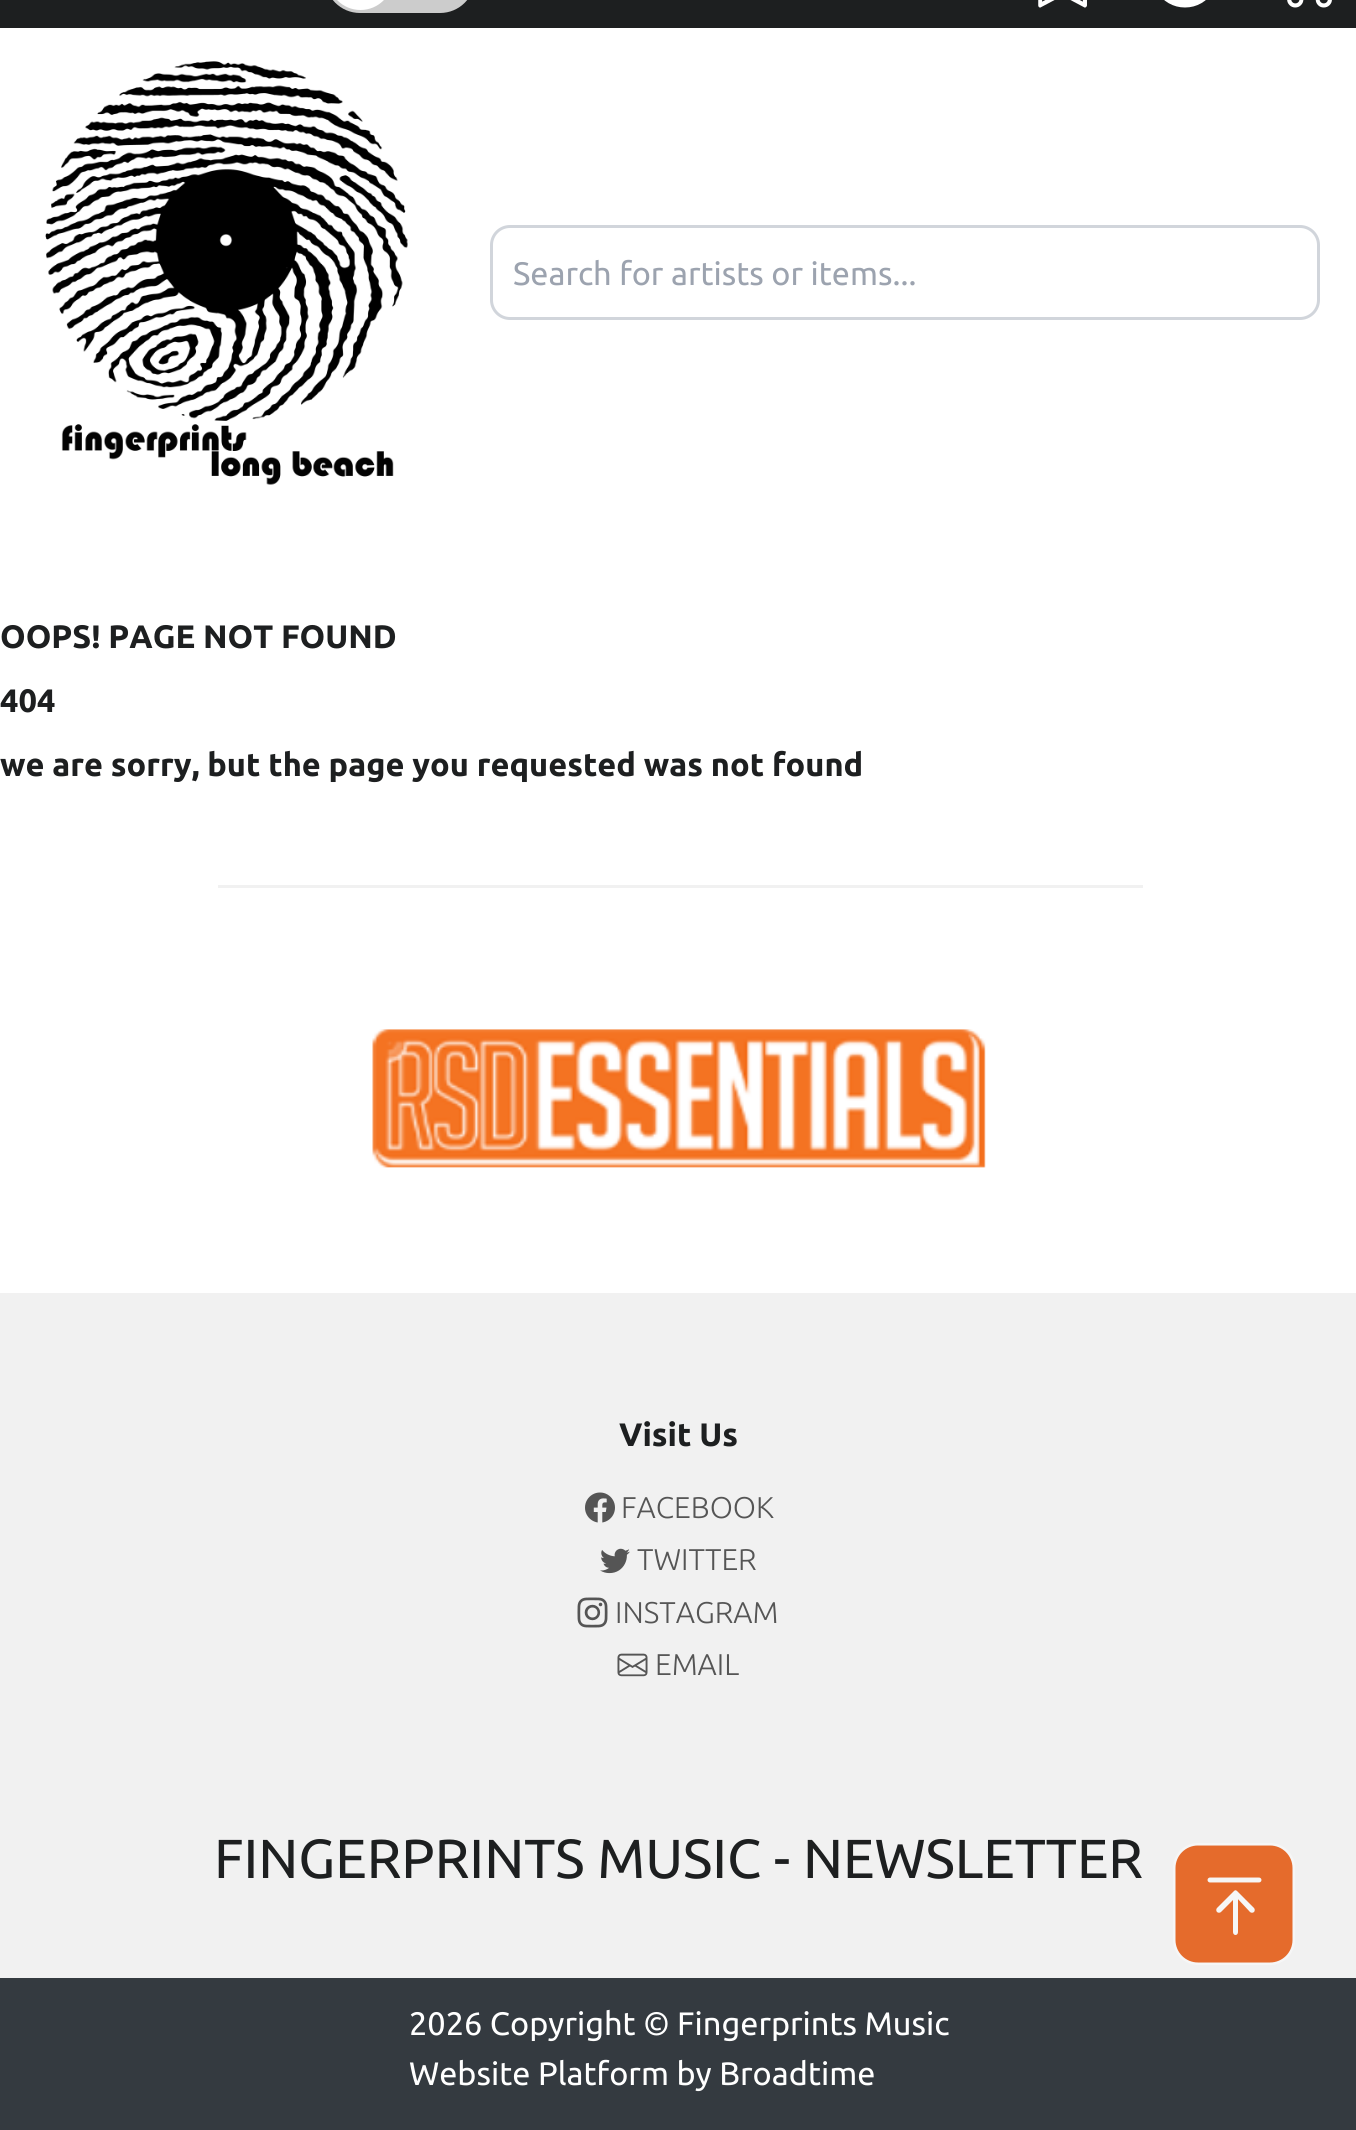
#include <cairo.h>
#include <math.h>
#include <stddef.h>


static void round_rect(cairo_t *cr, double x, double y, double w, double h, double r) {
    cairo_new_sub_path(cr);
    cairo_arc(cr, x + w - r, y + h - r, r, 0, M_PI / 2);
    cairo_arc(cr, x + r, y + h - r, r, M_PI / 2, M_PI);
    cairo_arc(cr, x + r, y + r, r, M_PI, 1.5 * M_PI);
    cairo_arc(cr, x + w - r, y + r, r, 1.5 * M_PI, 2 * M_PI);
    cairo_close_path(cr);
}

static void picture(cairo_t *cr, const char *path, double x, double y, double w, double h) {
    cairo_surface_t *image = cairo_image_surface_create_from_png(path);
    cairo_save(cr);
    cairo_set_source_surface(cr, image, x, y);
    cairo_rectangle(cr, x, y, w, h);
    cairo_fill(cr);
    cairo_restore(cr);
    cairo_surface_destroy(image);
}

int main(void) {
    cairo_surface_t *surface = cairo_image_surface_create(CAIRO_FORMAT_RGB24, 1356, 2130);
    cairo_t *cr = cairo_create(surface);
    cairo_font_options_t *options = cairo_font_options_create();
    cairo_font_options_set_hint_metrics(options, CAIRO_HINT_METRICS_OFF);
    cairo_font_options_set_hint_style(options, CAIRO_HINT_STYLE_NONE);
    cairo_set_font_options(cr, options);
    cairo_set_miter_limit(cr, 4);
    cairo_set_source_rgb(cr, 1, 1, 1);
    cairo_paint(cr);
    cairo_set_source_rgb(cr, 0.114, 0.122, 0.125);
    cairo_rectangle(cr, 0, 0, 1356, 28);
    cairo_fill(cr);
    cairo_set_source_rgb(cr, 0.8, 0.8, 0.8);
    round_rect(cr, 325, -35, 150, 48, 35);
    cairo_fill(cr);
    cairo_set_source_rgb(cr, 1, 1, 1);
    round_rect(cr, 328, -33, 65, 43, 32.5);
    cairo_fill(cr);
    picture(cr, "img1.png", 1038, 0, 49, 8);
    picture(cr, "img2.png", 1164, 0, 42, 8);
    picture(cr, "img3.png", 1287, 0, 45, 8);
    picture(cr, "img4.png", 45, 61, 363, 424);
    round_rect(cr, 491.5, 226.5, 827, 92, 18.5);
    cairo_set_source_rgb(cr, 0.82, 0.835, 0.859);
    cairo_set_line_width(cr, 3);
    cairo_stroke(cr);
    cairo_select_font_face(cr, "Ubuntu", CAIRO_FONT_SLANT_NORMAL, CAIRO_FONT_WEIGHT_NORMAL);
    cairo_set_font_size(cr, 32.5);
    cairo_set_source_rgb(cr, 0.612, 0.639, 0.686);
    cairo_move_to(cr, 513, 285);
    cairo_show_text(cr, "Search for artists or items...");
    cairo_select_font_face(cr, "Ubuntu", CAIRO_FONT_SLANT_NORMAL, CAIRO_FONT_WEIGHT_BOLD);
    cairo_set_source_rgb(cr, 0.114, 0.122, 0.125);
    cairo_move_to(cr, 0, 648);
    cairo_show_text(cr, "OOPS! PAGE NOT FOUND");
    cairo_move_to(cr, 0, 712);
    cairo_show_text(cr, "404");
    cairo_move_to(cr, 0, 776);
    cairo_show_text(cr, "we are sorry, but the page you requested was not found");
    cairo_set_source_rgb(cr, 0.945, 0.945, 0.945);
    cairo_rectangle(cr, 218, 885, 925, 3);
    cairo_fill(cr);
    picture(cr, "img5.png", 372, 1029, 614, 139);
    cairo_rectangle(cr, 0, 1293, 1356, 685);
    cairo_fill(cr);
    cairo_set_source_rgb(cr, 0.114, 0.122, 0.125);
    cairo_move_to(cr, 619, 1446);
    cairo_show_text(cr, "Visit Us");
    picture(cr, "img6.png", 585, 1492, 30, 31);
    cairo_select_font_face(cr, "Ubuntu Light", CAIRO_FONT_SLANT_NORMAL, CAIRO_FONT_WEIGHT_NORMAL);
    cairo_set_font_size(cr, 30);
    cairo_set_source_rgb(cr, 0.333, 0.333, 0.333);
    cairo_move_to(cr, 621, 1518);
    cairo_show_text(cr, "FACEBOOK");
    picture(cr, "img7.png", 600, 1548, 30, 26);
    cairo_move_to(cr, 637, 1570);
    cairo_show_text(cr, "TWITTER");
    picture(cr, "img8.png", 577, 1597, 31, 31);
    cairo_move_to(cr, 615, 1623);
    cairo_show_text(cr, "INSTAGRAM");
    picture(cr, "img9.png", 617, 1653, 31, 24);
    cairo_move_to(cr, 655, 1675);
    cairo_show_text(cr, "EMAIL");
    cairo_select_font_face(cr, "Ubuntu", CAIRO_FONT_SLANT_NORMAL, CAIRO_FONT_WEIGHT_NORMAL);
    cairo_set_font_size(cr, 55);
    cairo_set_source_rgb(cr, 0.114, 0.122, 0.125);
    cairo_move_to(cr, 214, 1878);
    cairo_show_text(cr, "FINGERPRINTS MUSIC - NEWSLETTER");
    cairo_set_source_rgb(cr, 0.204, 0.227, 0.251);
    cairo_rectangle(cr, 0, 1978, 1356, 152);
    cairo_fill(cr);
    cairo_set_font_size(cr, 32.5);
    cairo_set_source_rgb(cr, 1, 1, 1);
    cairo_move_to(cr, 409, 2035);
    cairo_show_text(cr, "2026 Copyright © Fingerprints Music");
    cairo_move_to(cr, 409, 2085);
    cairo_show_text(cr, "Website Platform by Broadtime");
    cairo_set_source_rgb(cr, 0.898, 0.42, 0.173);
    round_rect(cr, 1174.25, 1844.25, 119.5, 119.5, 23.75);
    cairo_fill_preserve(cr);
    cairo_set_source_rgb(cr, 0.961, 0.961, 0.961);
    cairo_set_line_width(cr, 2.5);
    cairo_stroke(cr);
    cairo_new_path(cr);
    cairo_move_to(cr, 1210, 1880);
    cairo_line_to(cr, 1259, 1880);
    cairo_set_line_width(cr, 4.9);
    cairo_set_line_cap(cr, CAIRO_LINE_CAP_ROUND);
    cairo_stroke(cr);
    cairo_new_path(cr);
    cairo_move_to(cr, 1233, 1932);
    cairo_curve_to(cr, 1233, 1936, 1238, 1936, 1238, 1932);
    cairo_close_path(cr);
    cairo_move_to(cr, 1237, 1891);
    cairo_curve_to(cr, 1236, 1890, 1235, 1890, 1234, 1891);
    cairo_line_to(cr, 1217, 1908);
    cairo_curve_to(cr, 1216, 1909, 1216, 1911, 1217, 1912);
    cairo_curve_to(cr, 1218, 1913, 1220, 1913, 1221, 1912);
    cairo_line_to(cr, 1236, 1897);
    cairo_line_to(cr, 1250, 1912);
    cairo_curve_to(cr, 1251, 1913, 1253, 1913, 1254, 1912);
    cairo_curve_to(cr, 1255, 1911, 1255, 1909, 1254, 1908);
    cairo_close_path(cr);
    cairo_move_to(cr, 1238, 1932);
    cairo_line_to(cr, 1238, 1893);
    cairo_line_to(cr, 1233, 1893);
    cairo_line_to(cr, 1233, 1932);
    cairo_close_path(cr);
    cairo_fill(cr);
    cairo_surface_write_to_png(surface, "page.png");
    cairo_font_options_destroy(options);
    cairo_destroy(cr);
    cairo_surface_destroy(surface);
    return 0;
}
